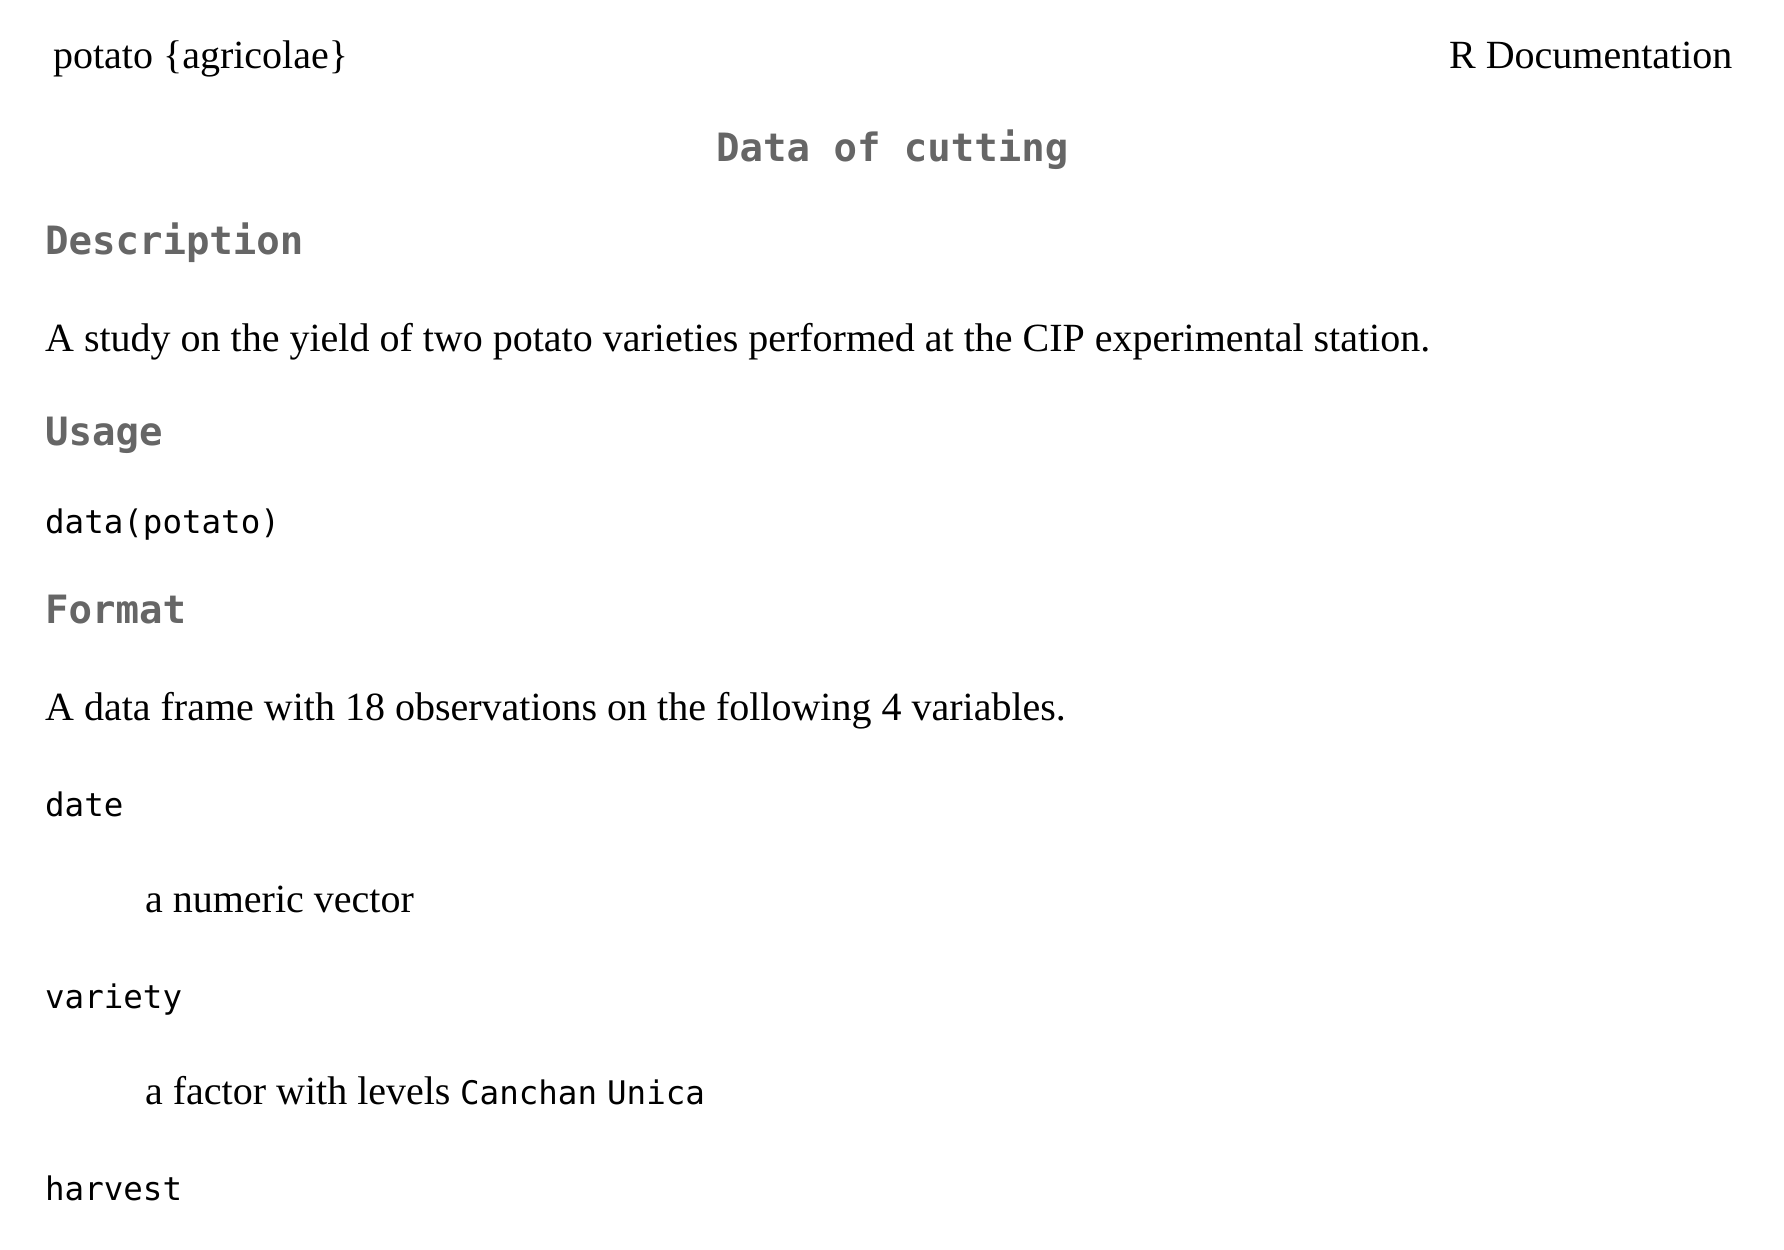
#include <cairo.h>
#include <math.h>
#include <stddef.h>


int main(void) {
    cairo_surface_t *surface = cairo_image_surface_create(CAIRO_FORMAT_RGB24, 1784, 1250);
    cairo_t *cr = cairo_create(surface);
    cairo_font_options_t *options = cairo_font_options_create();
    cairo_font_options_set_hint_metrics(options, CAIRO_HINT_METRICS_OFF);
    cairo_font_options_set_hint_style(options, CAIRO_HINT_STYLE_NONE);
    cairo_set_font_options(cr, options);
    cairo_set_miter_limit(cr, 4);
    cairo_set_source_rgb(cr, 1, 1, 1);
    cairo_paint(cr);
    cairo_select_font_face(cr, "Liberation Serif", CAIRO_FONT_SLANT_NORMAL, CAIRO_FONT_WEIGHT_NORMAL);
    cairo_set_font_size(cr, 40);
    cairo_set_source_rgb(cr, 0, 0, 0);
    cairo_move_to(cr, 53, 68);
    cairo_show_text(cr, "potato {agricolae}");
    cairo_move_to(cr, 1449, 68);
    cairo_show_text(cr, "R Documentation");
    cairo_select_font_face(cr, "DejaVu Sans Mono", CAIRO_FONT_SLANT_NORMAL, CAIRO_FONT_WEIGHT_BOLD);
    cairo_set_font_size(cr, 39);
    cairo_set_source_rgb(cr, 0.4, 0.4, 0.4);
    cairo_move_to(cr, 716, 161);
    cairo_show_text(cr, "Data of cutting");
    cairo_move_to(cr, 45, 254);
    cairo_show_text(cr, "Description");
    cairo_select_font_face(cr, "Liberation Serif", CAIRO_FONT_SLANT_NORMAL, CAIRO_FONT_WEIGHT_NORMAL);
    cairo_set_font_size(cr, 40);
    cairo_set_source_rgb(cr, 0, 0, 0);
    cairo_move_to(cr, 45, 351);
    cairo_show_text(cr, "A study on the yield of two potato varieties performed at the CIP experimental station.");
    cairo_select_font_face(cr, "DejaVu Sans Mono", CAIRO_FONT_SLANT_NORMAL, CAIRO_FONT_WEIGHT_BOLD);
    cairo_set_font_size(cr, 39);
    cairo_set_source_rgb(cr, 0.4, 0.4, 0.4);
    cairo_move_to(cr, 45, 445);
    cairo_show_text(cr, "Usage");
    cairo_select_font_face(cr, "DejaVu Sans Mono", CAIRO_FONT_SLANT_NORMAL, CAIRO_FONT_WEIGHT_NORMAL);
    cairo_set_font_size(cr, 32.5);
    cairo_set_source_rgb(cr, 0, 0, 0);
    cairo_move_to(cr, 45, 533);
    cairo_show_text(cr, "data(potato)");
    cairo_select_font_face(cr, "DejaVu Sans Mono", CAIRO_FONT_SLANT_NORMAL, CAIRO_FONT_WEIGHT_BOLD);
    cairo_set_font_size(cr, 39);
    cairo_set_source_rgb(cr, 0.4, 0.4, 0.4);
    cairo_move_to(cr, 45, 623);
    cairo_show_text(cr, "Format");
    cairo_select_font_face(cr, "Liberation Serif", CAIRO_FONT_SLANT_NORMAL, CAIRO_FONT_WEIGHT_NORMAL);
    cairo_set_font_size(cr, 40);
    cairo_set_source_rgb(cr, 0, 0, 0);
    cairo_move_to(cr, 45, 720);
    cairo_show_text(cr, "A data frame with 18 observations on the following 4 variables.");
    cairo_select_font_face(cr, "DejaVu Sans Mono", CAIRO_FONT_SLANT_NORMAL, CAIRO_FONT_WEIGHT_NORMAL);
    cairo_set_font_size(cr, 32.5);
    cairo_move_to(cr, 45, 816);
    cairo_show_text(cr, "date");
    cairo_select_font_face(cr, "Liberation Serif", CAIRO_FONT_SLANT_NORMAL, CAIRO_FONT_WEIGHT_NORMAL);
    cairo_set_font_size(cr, 40);
    cairo_move_to(cr, 145, 912);
    cairo_show_text(cr, "a numeric vector");
    cairo_select_font_face(cr, "DejaVu Sans Mono", CAIRO_FONT_SLANT_NORMAL, CAIRO_FONT_WEIGHT_NORMAL);
    cairo_set_font_size(cr, 32.5);
    cairo_move_to(cr, 45, 1008);
    cairo_show_text(cr, "variety");
    cairo_select_font_face(cr, "Liberation Serif", CAIRO_FONT_SLANT_NORMAL, CAIRO_FONT_WEIGHT_NORMAL);
    cairo_set_font_size(cr, 40);
    cairo_move_to(cr, 145, 1104);
    cairo_show_text(cr, "a factor with levels");
    cairo_select_font_face(cr, "DejaVu Sans Mono", CAIRO_FONT_SLANT_NORMAL, CAIRO_FONT_WEIGHT_NORMAL);
    cairo_set_font_size(cr, 32.5);
    cairo_move_to(cr, 460, 1104);
    cairo_show_text(cr, "Canchan");
    cairo_move_to(cr, 607, 1104);
    cairo_show_text(cr, "Unica");
    cairo_move_to(cr, 45, 1200);
    cairo_show_text(cr, "harvest");
    cairo_surface_write_to_png(surface, "page.png");
    cairo_font_options_destroy(options);
    cairo_destroy(cr);
    cairo_surface_destroy(surface);
    return 0;
}
